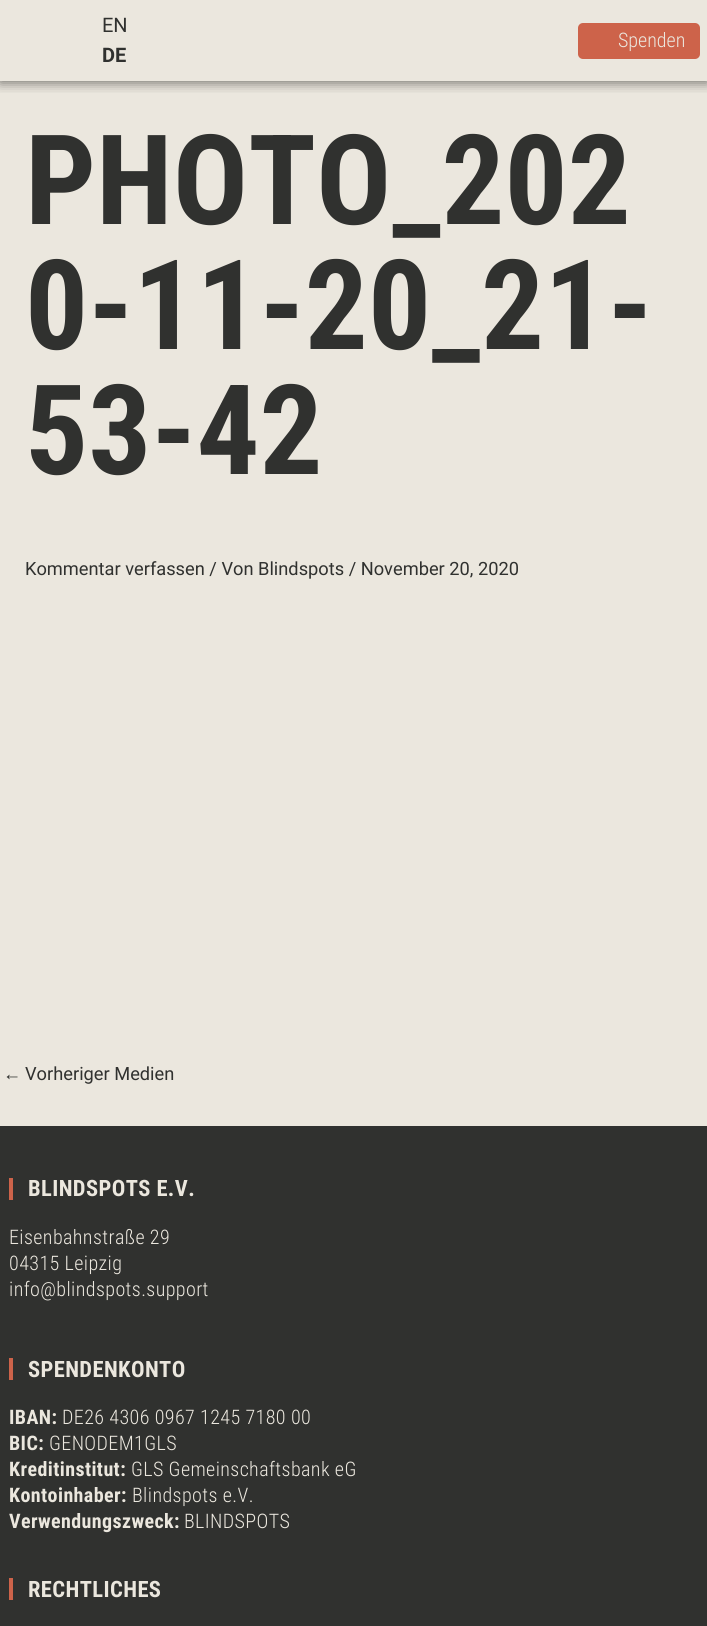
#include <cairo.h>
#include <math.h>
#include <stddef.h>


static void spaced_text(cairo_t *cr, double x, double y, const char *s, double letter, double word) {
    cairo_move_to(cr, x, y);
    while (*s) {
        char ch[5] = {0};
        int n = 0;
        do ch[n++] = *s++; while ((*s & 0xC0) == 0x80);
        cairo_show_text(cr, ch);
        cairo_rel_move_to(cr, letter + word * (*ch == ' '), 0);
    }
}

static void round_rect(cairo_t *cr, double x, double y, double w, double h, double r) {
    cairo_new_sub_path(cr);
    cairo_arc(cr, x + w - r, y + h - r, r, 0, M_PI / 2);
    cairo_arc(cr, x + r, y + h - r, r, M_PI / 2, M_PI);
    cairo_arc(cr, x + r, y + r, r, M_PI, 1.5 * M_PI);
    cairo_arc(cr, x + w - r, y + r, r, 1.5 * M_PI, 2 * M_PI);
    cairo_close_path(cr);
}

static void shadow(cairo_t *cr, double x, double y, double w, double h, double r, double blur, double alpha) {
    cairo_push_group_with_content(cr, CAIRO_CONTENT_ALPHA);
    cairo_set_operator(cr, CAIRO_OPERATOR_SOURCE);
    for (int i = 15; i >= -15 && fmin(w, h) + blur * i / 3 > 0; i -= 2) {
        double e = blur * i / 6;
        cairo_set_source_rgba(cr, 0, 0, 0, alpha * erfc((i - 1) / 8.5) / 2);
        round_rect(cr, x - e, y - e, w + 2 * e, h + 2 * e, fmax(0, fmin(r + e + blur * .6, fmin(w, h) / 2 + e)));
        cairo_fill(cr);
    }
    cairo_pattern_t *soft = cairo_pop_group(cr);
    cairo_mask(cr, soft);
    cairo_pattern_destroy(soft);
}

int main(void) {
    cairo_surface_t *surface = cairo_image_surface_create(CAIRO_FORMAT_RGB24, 707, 1626);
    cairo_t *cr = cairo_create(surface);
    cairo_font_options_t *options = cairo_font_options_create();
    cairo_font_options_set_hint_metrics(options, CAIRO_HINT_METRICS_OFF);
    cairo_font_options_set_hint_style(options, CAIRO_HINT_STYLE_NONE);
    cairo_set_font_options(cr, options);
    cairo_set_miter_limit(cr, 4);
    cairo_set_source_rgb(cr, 0.918, 0.906, 0.871);
    cairo_paint(cr);
    cairo_save(cr);
    cairo_rectangle(cr, 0, 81, 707, 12);
    cairo_clip(cr);
    cairo_set_source_rgb(cr, 0, 0, 0);
    shadow(cr, 0, 1, 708, 82, 0, 6, 0.5);
    cairo_restore(cr);
    cairo_select_font_face(cr, "Roboto", CAIRO_FONT_SLANT_NORMAL, CAIRO_FONT_WEIGHT_NORMAL);
    cairo_set_font_size(cr, 20);
    cairo_set_source_rgb(cr, 0.188, 0.192, 0.184);
    cairo_move_to(cr, 102, 32);
    cairo_show_text(cr, "EN");
    cairo_select_font_face(cr, "Roboto", CAIRO_FONT_SLANT_NORMAL, CAIRO_FONT_WEIGHT_BOLD);
    cairo_move_to(cr, 102, 62);
    cairo_show_text(cr, "DE");
    cairo_set_source_rgb(cr, 0.804, 0.388, 0.29);
    round_rect(cr, 578, 23, 122, 36, 5);
    cairo_fill(cr);
    cairo_select_font_face(cr, "Roboto Condensed Light", CAIRO_FONT_SLANT_NORMAL, CAIRO_FONT_WEIGHT_NORMAL);
    cairo_set_source_rgb(cr, 0.918, 0.906, 0.871);
    cairo_move_to(cr, 618, 47);
    cairo_show_text(cr, "Spenden");
    cairo_select_font_face(cr, "Roboto Condensed", CAIRO_FONT_SLANT_NORMAL, CAIRO_FONT_WEIGHT_BOLD);
    cairo_set_font_size(cr, 125);
    cairo_set_source_rgb(cr, 0.188, 0.192, 0.184);
    cairo_move_to(cr, 25, 224);
    cairo_show_text(cr, "PHOTO_202");
    cairo_move_to(cr, 25, 349);
    cairo_show_text(cr, "0-11-20_21-");
    cairo_move_to(cr, 25, 474);
    cairo_show_text(cr, "53-42");
    cairo_select_font_face(cr, "Roboto", CAIRO_FONT_SLANT_NORMAL, CAIRO_FONT_WEIGHT_NORMAL);
    cairo_set_font_size(cr, 18.25);
    cairo_move_to(cr, 25, 575);
    cairo_show_text(cr, "Kommentar verfassen / Von Blindspots / November 20, 2020");
    cairo_select_font_face(cr, "Liberation Sans", CAIRO_FONT_SLANT_NORMAL, CAIRO_FONT_WEIGHT_NORMAL);
    cairo_move_to(cr, 3, 1080);
    cairo_show_text(cr, "←");
    cairo_select_font_face(cr, "Roboto", CAIRO_FONT_SLANT_NORMAL, CAIRO_FONT_WEIGHT_NORMAL);
    cairo_move_to(cr, 25, 1080);
    cairo_show_text(cr, "Vorheriger Medien");
    cairo_rectangle(cr, 0, 1126, 707, 500);
    cairo_fill(cr);
    cairo_set_source_rgb(cr, 0.804, 0.388, 0.29);
    cairo_rectangle(cr, 9, 1178, 4, 22);
    cairo_fill(cr);
    cairo_select_font_face(cr, "Roboto Condensed", CAIRO_FONT_SLANT_NORMAL, CAIRO_FONT_WEIGHT_BOLD);
    cairo_set_font_size(cr, 22.5);
    cairo_set_source_rgb(cr, 0.918, 0.906, 0.871);
    spaced_text(cr, 28, 1196, "BLINDSPOTS E.V.", 0.4, 0);
    cairo_select_font_face(cr, "Roboto Condensed Light", CAIRO_FONT_SLANT_NORMAL, CAIRO_FONT_WEIGHT_NORMAL);
    cairo_set_font_size(cr, 20);
    spaced_text(cr, 9, 1244, "Eisenbahnstraße 29", 0.4, 0);
    spaced_text(cr, 9, 1270, "04315 Leipzig", 0.4, 0);
    spaced_text(cr, 9, 1296, "info@blindspots.support", 0.4, 0);
    cairo_set_source_rgb(cr, 0.804, 0.388, 0.29);
    cairo_rectangle(cr, 9, 1358, 4, 22);
    cairo_fill(cr);
    cairo_select_font_face(cr, "Roboto Condensed", CAIRO_FONT_SLANT_NORMAL, CAIRO_FONT_WEIGHT_BOLD);
    cairo_set_font_size(cr, 22.5);
    cairo_set_source_rgb(cr, 0.918, 0.906, 0.871);
    spaced_text(cr, 28, 1377, "SPENDENKONTO", 0.4, 0);
    cairo_set_font_size(cr, 20);
    spaced_text(cr, 9, 1424, "IBAN:", 0.4, 0);
    cairo_select_font_face(cr, "Roboto Condensed Light", CAIRO_FONT_SLANT_NORMAL, CAIRO_FONT_WEIGHT_NORMAL);
    spaced_text(cr, 62, 1424, "DE26 4306 0967 1245 7180 00", 0.4, 0);
    cairo_select_font_face(cr, "Roboto Condensed", CAIRO_FONT_SLANT_NORMAL, CAIRO_FONT_WEIGHT_BOLD);
    spaced_text(cr, 9, 1450, "BIC:", 0.4, 0);
    cairo_select_font_face(cr, "Roboto Condensed Light", CAIRO_FONT_SLANT_NORMAL, CAIRO_FONT_WEIGHT_NORMAL);
    spaced_text(cr, 49, 1450, "GENODEM1GLS", 0.4, 0);
    cairo_select_font_face(cr, "Roboto Condensed", CAIRO_FONT_SLANT_NORMAL, CAIRO_FONT_WEIGHT_BOLD);
    spaced_text(cr, 9, 1476, "Kreditinstitut:", 0.4, 0);
    cairo_select_font_face(cr, "Roboto Condensed Light", CAIRO_FONT_SLANT_NORMAL, CAIRO_FONT_WEIGHT_NORMAL);
    spaced_text(cr, 131, 1476, "GLS Gemeinschaftsbank eG", 0.4, 0);
    cairo_select_font_face(cr, "Roboto Condensed", CAIRO_FONT_SLANT_NORMAL, CAIRO_FONT_WEIGHT_BOLD);
    spaced_text(cr, 9, 1502, "Kontoinhaber:", 0.4, 0);
    cairo_select_font_face(cr, "Roboto Condensed Light", CAIRO_FONT_SLANT_NORMAL, CAIRO_FONT_WEIGHT_NORMAL);
    spaced_text(cr, 132, 1502, "Blindspots e.V.", 0.4, 0);
    cairo_select_font_face(cr, "Roboto Condensed", CAIRO_FONT_SLANT_NORMAL, CAIRO_FONT_WEIGHT_BOLD);
    spaced_text(cr, 9, 1528, "Verwendungszweck:", 0.4, 0);
    cairo_select_font_face(cr, "Roboto Condensed Light", CAIRO_FONT_SLANT_NORMAL, CAIRO_FONT_WEIGHT_NORMAL);
    spaced_text(cr, 184, 1528, "BLINDSPOTS", 0.4, 0);
    cairo_set_source_rgb(cr, 0.804, 0.388, 0.29);
    cairo_rectangle(cr, 9, 1578, 4, 22);
    cairo_fill(cr);
    cairo_select_font_face(cr, "Roboto Condensed", CAIRO_FONT_SLANT_NORMAL, CAIRO_FONT_WEIGHT_BOLD);
    cairo_set_font_size(cr, 22.5);
    cairo_set_source_rgb(cr, 0.918, 0.906, 0.871);
    spaced_text(cr, 28, 1597, "RECHTLICHES", 0.4, 0);
    cairo_surface_write_to_png(surface, "page.png");
    cairo_font_options_destroy(options);
    cairo_destroy(cr);
    cairo_surface_destroy(surface);
    return 0;
}
